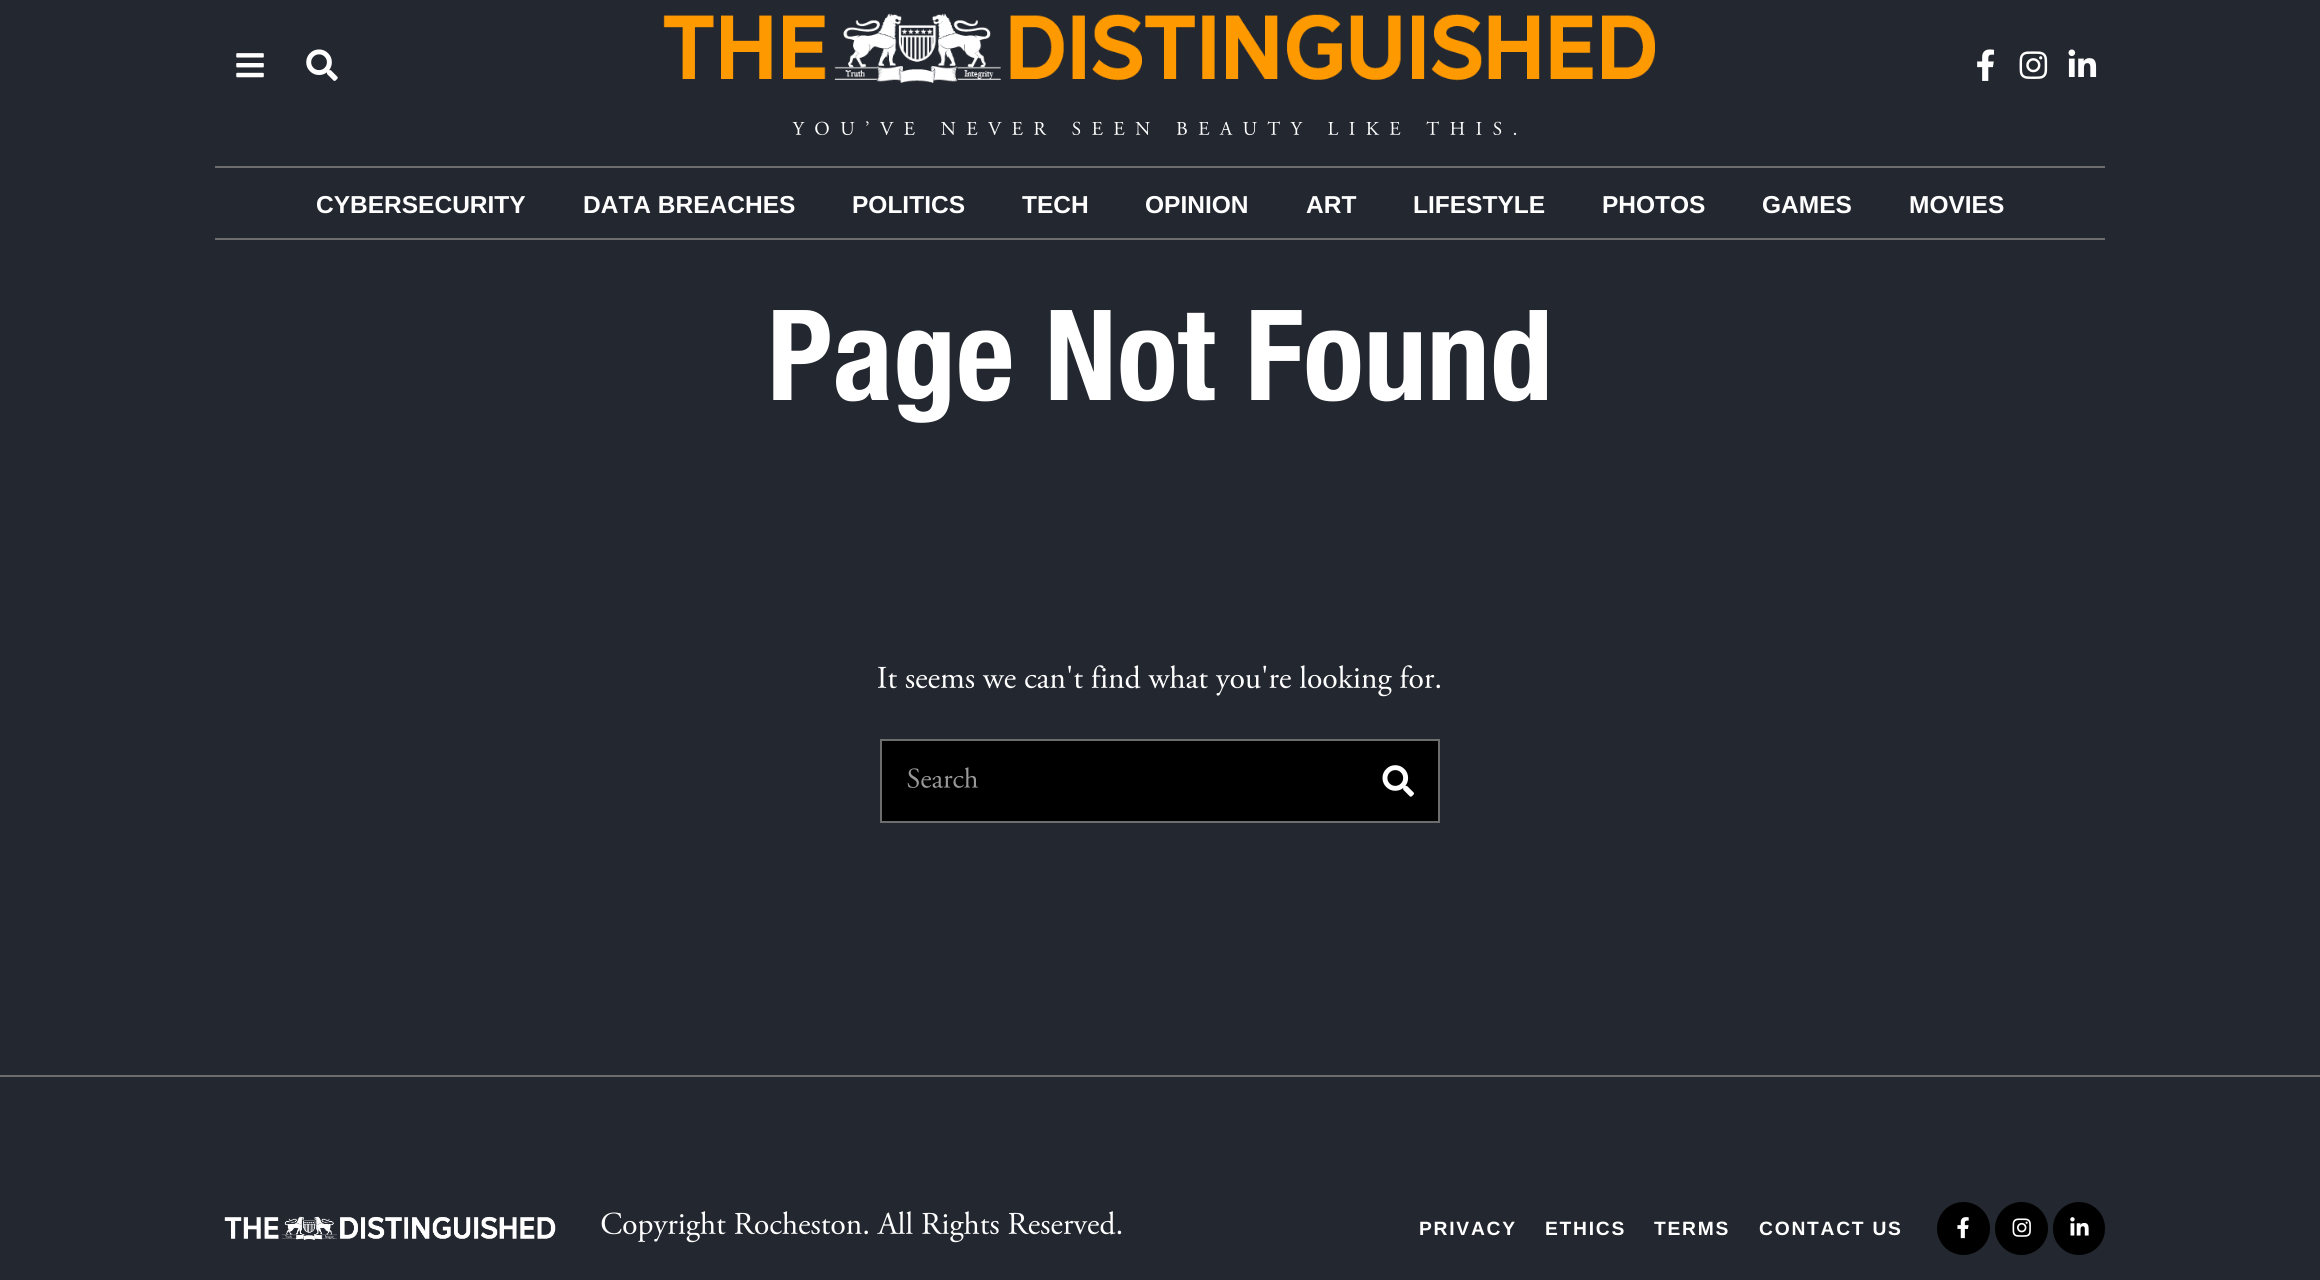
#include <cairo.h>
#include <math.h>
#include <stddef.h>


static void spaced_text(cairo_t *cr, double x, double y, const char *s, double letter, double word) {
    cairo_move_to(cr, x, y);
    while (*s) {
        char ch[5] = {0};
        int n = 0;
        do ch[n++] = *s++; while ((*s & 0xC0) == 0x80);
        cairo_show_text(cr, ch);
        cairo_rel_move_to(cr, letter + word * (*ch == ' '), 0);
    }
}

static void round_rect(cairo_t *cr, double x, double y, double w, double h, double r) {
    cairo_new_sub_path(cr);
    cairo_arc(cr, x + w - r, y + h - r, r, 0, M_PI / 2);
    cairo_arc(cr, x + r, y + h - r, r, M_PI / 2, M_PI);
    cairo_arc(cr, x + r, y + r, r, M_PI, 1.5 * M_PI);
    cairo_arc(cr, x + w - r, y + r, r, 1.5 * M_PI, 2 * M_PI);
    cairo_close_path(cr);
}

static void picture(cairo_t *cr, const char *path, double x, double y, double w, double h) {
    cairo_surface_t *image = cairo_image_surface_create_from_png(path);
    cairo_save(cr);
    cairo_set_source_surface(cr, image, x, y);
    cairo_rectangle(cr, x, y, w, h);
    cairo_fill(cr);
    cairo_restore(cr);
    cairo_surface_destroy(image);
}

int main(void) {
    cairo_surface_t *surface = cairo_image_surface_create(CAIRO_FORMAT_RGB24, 2320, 1280);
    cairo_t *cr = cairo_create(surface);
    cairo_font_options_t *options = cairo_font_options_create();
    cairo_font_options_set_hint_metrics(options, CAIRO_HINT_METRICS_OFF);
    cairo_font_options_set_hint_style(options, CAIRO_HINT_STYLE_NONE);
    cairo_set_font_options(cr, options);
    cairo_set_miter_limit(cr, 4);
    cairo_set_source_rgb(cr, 0.137, 0.153, 0.184);
    cairo_paint(cr);
    picture(cr, "img1.png", 236, 53, 28, 25);
    picture(cr, "img2.png", 306, 49, 32, 32);
    picture(cr, "img3.png", 663, 13, 992, 70);
    picture(cr, "img4.png", 792, 121, 725, 15);
    picture(cr, "img5.png", 1977, 49, 18, 32);
    picture(cr, "img6.png", 2019, 51, 29, 28);
    picture(cr, "img7.png", 2068, 49, 29, 28);
    cairo_set_source_rgb(cr, 0.427, 0.427, 0.427);
    cairo_rectangle(cr, 215, 166, 1890, 2);
    cairo_fill(cr);
    cairo_rectangle(cr, 215, 238, 1890, 2);
    cairo_fill(cr);
    cairo_select_font_face(cr, "Liberation Sans", CAIRO_FONT_SLANT_NORMAL, CAIRO_FONT_WEIGHT_BOLD);
    cairo_set_font_size(cr, 24.5);
    cairo_set_source_rgb(cr, 1, 1, 1);
    cairo_move_to(cr, 316, 213);
    cairo_show_text(cr, "CYBERSECURITY");
    cairo_move_to(cr, 583, 213);
    cairo_show_text(cr, "DATA BREACHES");
    cairo_move_to(cr, 852, 213);
    cairo_show_text(cr, "POLITICS");
    cairo_move_to(cr, 1022, 213);
    cairo_show_text(cr, "TECH");
    cairo_move_to(cr, 1145, 213);
    cairo_show_text(cr, "OPINION");
    cairo_move_to(cr, 1306, 213);
    cairo_show_text(cr, "ART");
    cairo_move_to(cr, 1413, 213);
    cairo_show_text(cr, "LIFESTYLE");
    cairo_move_to(cr, 1602, 213);
    cairo_show_text(cr, "PHOTOS");
    cairo_move_to(cr, 1762, 213);
    cairo_show_text(cr, "GAMES");
    cairo_move_to(cr, 1909, 213);
    cairo_show_text(cr, "MOVIES");
    cairo_select_font_face(cr, "Helvetica Neue", CAIRO_FONT_SLANT_NORMAL, CAIRO_FONT_WEIGHT_BOLD);
    cairo_set_font_size(cr, 126);
    cairo_move_to(cr, 767, 400);
    cairo_show_text(cr, "Page Not Found");
    picture(cr, "img8.png", 878, 665, 562, 32);
    cairo_set_source_rgb(cr, 0, 0, 0);
    cairo_rectangle(cr, 881, 740, 558, 82);
    cairo_fill_preserve(cr);
    cairo_set_source_rgb(cr, 0.427, 0.427, 0.427);
    cairo_stroke(cr);
    picture(cr, "img9.png", 907, 767, 71, 21);
    picture(cr, "img10.png", 1382, 765, 32, 32);
    cairo_rectangle(cr, 0, 1075, 2320, 2);
    cairo_fill(cr);
    picture(cr, "img11.png", 224, 1216, 332, 24);
    picture(cr, "img12.png", 601, 1211, 521, 32);
    cairo_select_font_face(cr, "Liberation Sans", CAIRO_FONT_SLANT_NORMAL, CAIRO_FONT_WEIGHT_BOLD);
    cairo_set_font_size(cr, 19.25);
    cairo_set_source_rgb(cr, 1, 1, 1);
    spaced_text(cr, 1419, 1235, "PRIVACY", 1.75, 0);
    spaced_text(cr, 1545, 1235, "ETHICS", 1.75, 0);
    spaced_text(cr, 1654, 1235, "TERMS", 1.75, 0);
    spaced_text(cr, 1759, 1235, "CONTACT US", 1.75, 0);
    cairo_set_source_rgb(cr, 0, 0, 0);
    cairo_new_path(cr);
    cairo_arc(cr, 1963.5, 1228.5, 26.5, 0, 2 * M_PI);
    cairo_fill(cr);
    picture(cr, "img13.png", 1957, 1217, 12, 22);
    cairo_arc(cr, 2021.5, 1228.5, 26.5, 0, 2 * M_PI);
    cairo_fill(cr);
    picture(cr, "img14.png", 2012, 1218, 19, 19);
    round_rect(cr, 2053, 1202, 52, 53, 26);
    cairo_fill(cr);
    picture(cr, "img15.png", 2070, 1217, 19, 19);
    cairo_surface_write_to_png(surface, "page.png");
    cairo_font_options_destroy(options);
    cairo_destroy(cr);
    cairo_surface_destroy(surface);
    return 0;
}
